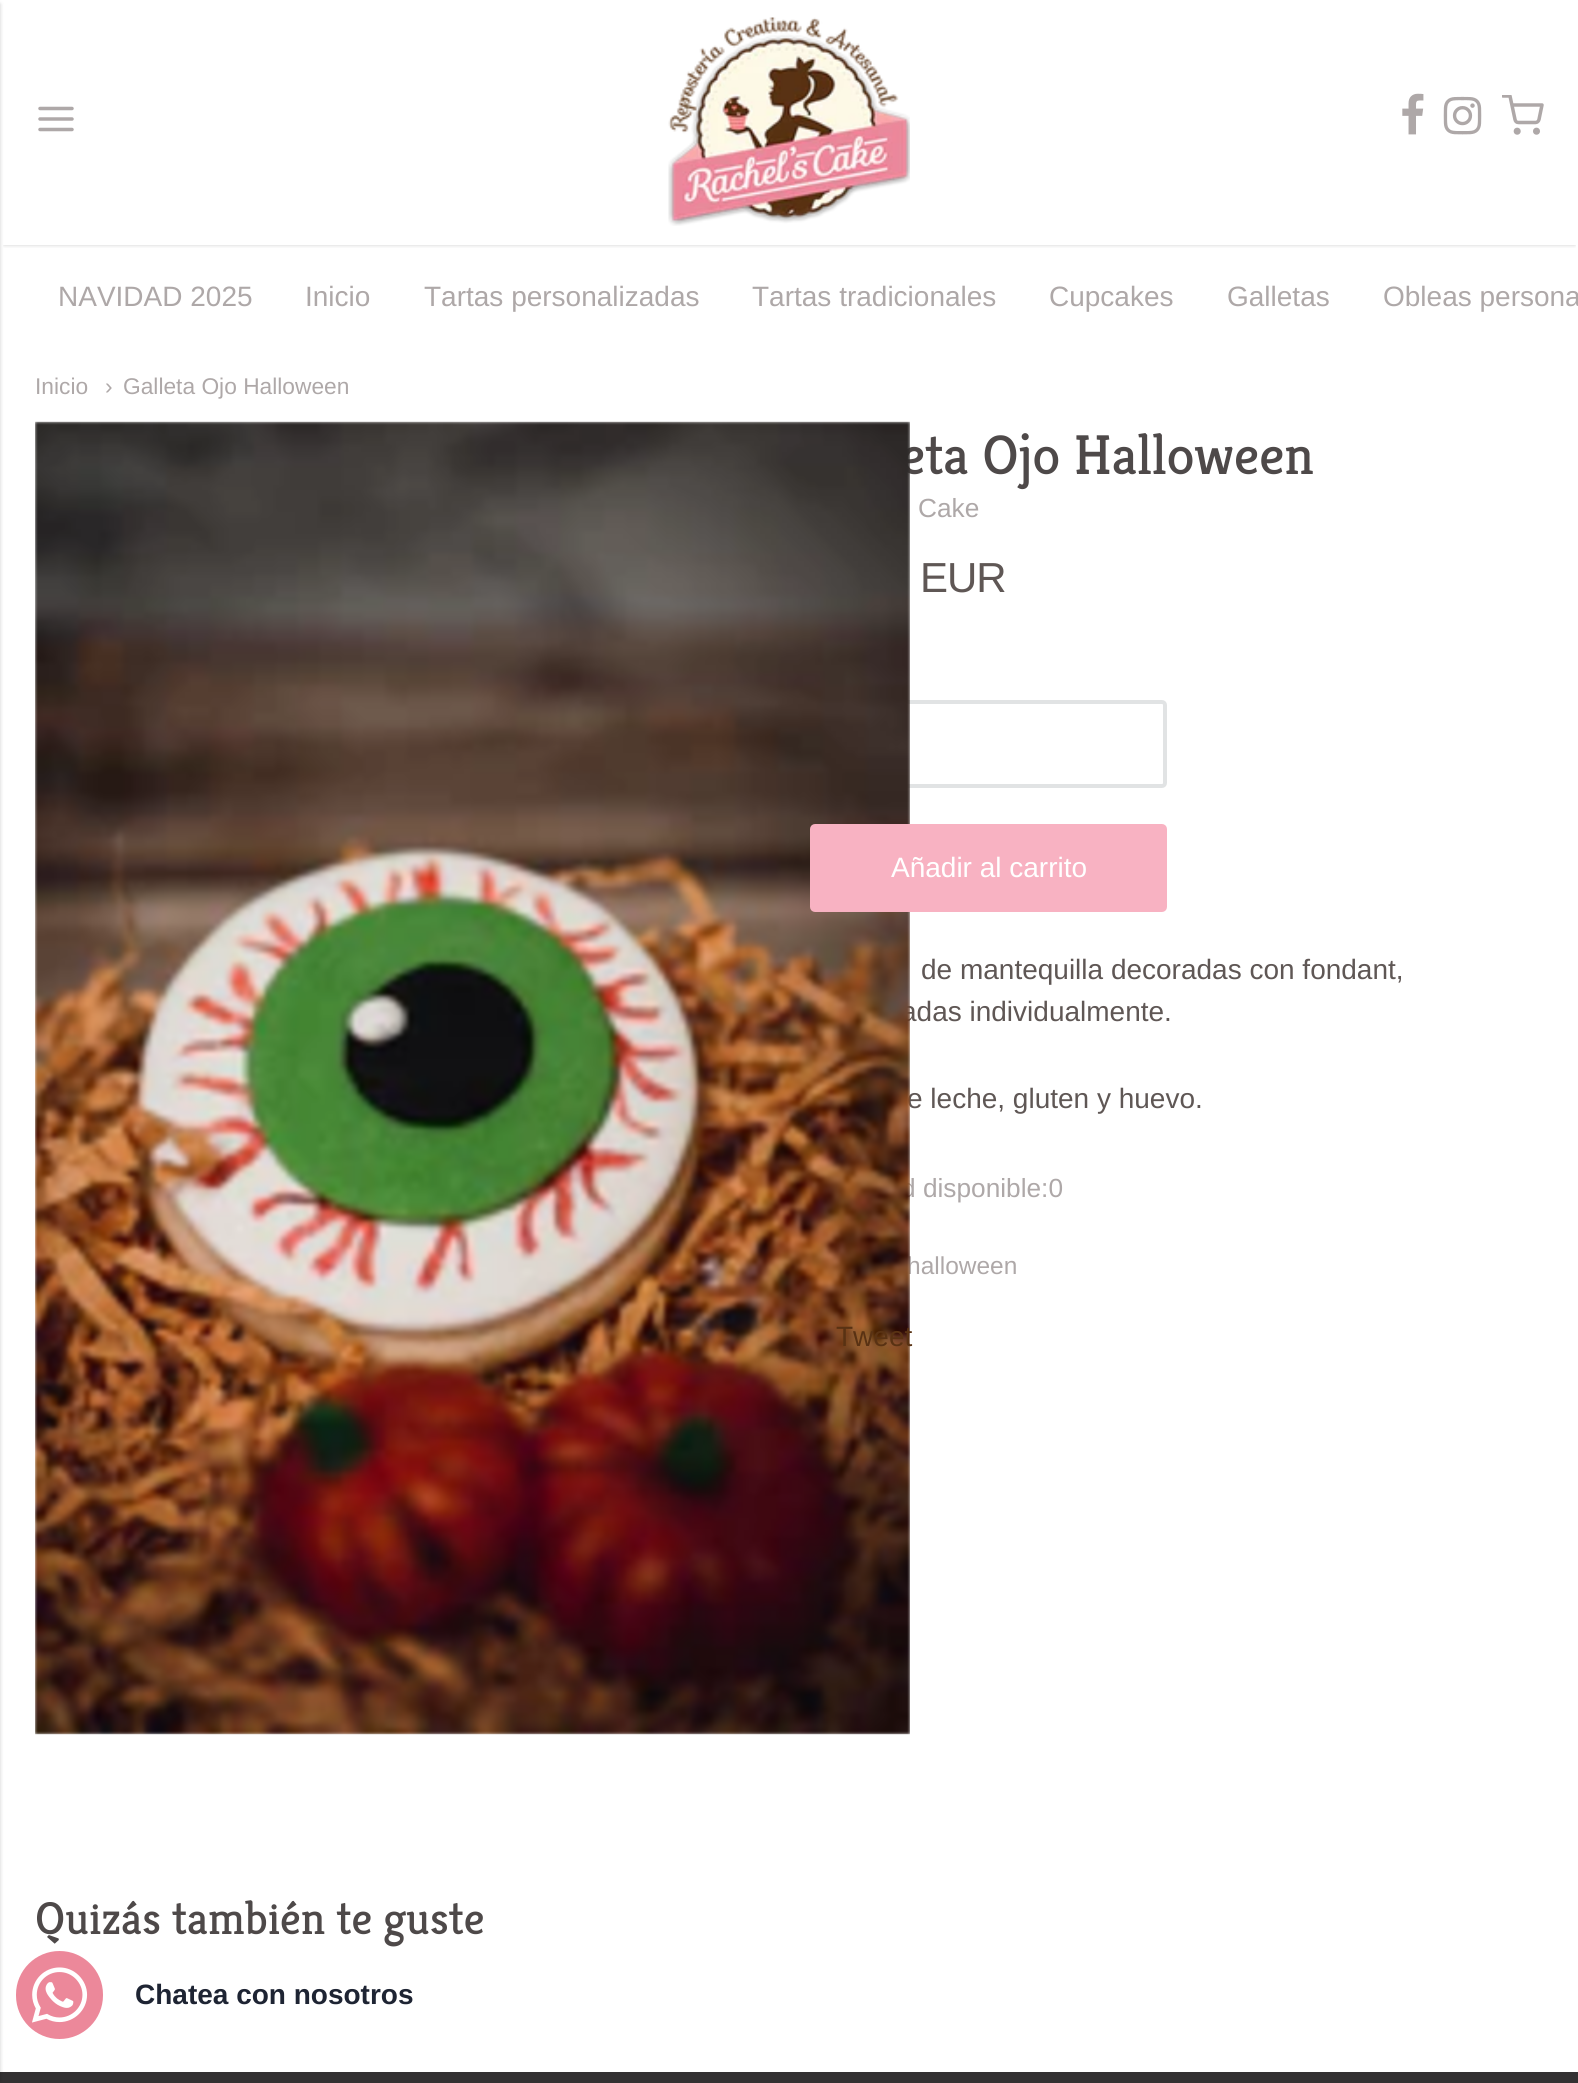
#include <cairo.h>
#include <math.h>
#include <stddef.h>


static void spaced_text(cairo_t *cr, double x, double y, const char *s, double letter, double word) {
    cairo_move_to(cr, x, y);
    while (*s) {
        char ch[5] = {0};
        int n = 0;
        do ch[n++] = *s++; while ((*s & 0xC0) == 0x80);
        cairo_show_text(cr, ch);
        cairo_rel_move_to(cr, letter + word * (*ch == ' '), 0);
    }
}

static void round_rect(cairo_t *cr, double x, double y, double w, double h, double r) {
    cairo_new_sub_path(cr);
    cairo_arc(cr, x + w - r, y + h - r, r, 0, M_PI / 2);
    cairo_arc(cr, x + r, y + h - r, r, M_PI / 2, M_PI);
    cairo_arc(cr, x + r, y + r, r, M_PI, 1.5 * M_PI);
    cairo_arc(cr, x + w - r, y + r, r, 1.5 * M_PI, 2 * M_PI);
    cairo_close_path(cr);
}

static void shadow(cairo_t *cr, double x, double y, double w, double h, double r, double blur, double alpha) {
    cairo_push_group_with_content(cr, CAIRO_CONTENT_ALPHA);
    cairo_set_operator(cr, CAIRO_OPERATOR_SOURCE);
    for (int i = 15; i >= -15 && fmin(w, h) + blur * i / 3 > 0; i -= 2) {
        double e = blur * i / 6;
        cairo_set_source_rgba(cr, 0, 0, 0, alpha * erfc((i - 1) / 8.5) / 2);
        round_rect(cr, x - e, y - e, w + 2 * e, h + 2 * e, fmax(0, fmin(r + e + blur * .6, fmin(w, h) / 2 + e)));
        cairo_fill(cr);
    }
    cairo_pattern_t *soft = cairo_pop_group(cr);
    cairo_mask(cr, soft);
    cairo_pattern_destroy(soft);
}

static void picture(cairo_t *cr, const char *path, double x, double y, double w, double h) {
    cairo_surface_t *image = cairo_image_surface_create_from_png(path);
    cairo_save(cr);
    cairo_set_source_surface(cr, image, x, y);
    cairo_rectangle(cr, x, y, w, h);
    cairo_fill(cr);
    cairo_restore(cr);
    cairo_surface_destroy(image);
}

int main(void) {
    cairo_surface_t *surface = cairo_image_surface_create(CAIRO_FORMAT_RGB24, 1578, 2083);
    cairo_t *cr = cairo_create(surface);
    cairo_font_options_t *options = cairo_font_options_create();
    cairo_font_options_set_hint_metrics(options, CAIRO_HINT_METRICS_OFF);
    cairo_font_options_set_hint_style(options, CAIRO_HINT_STYLE_NONE);
    cairo_set_font_options(cr, options);
    cairo_set_miter_limit(cr, 4);
    cairo_set_source_rgb(cr, 1, 1, 1);
    cairo_paint(cr);
    cairo_set_source_rgb(cr, 0.2, 0.192, 0.196);
    cairo_rectangle(cr, 0, 2072, 1578, 11);
    cairo_fill(cr);
    cairo_set_source_rgb(cr, 0, 0, 0);
    shadow(cr, -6, 4, 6, 2077, 0, 2, 0.2);
    cairo_save(cr);
    cairo_rectangle(cr, 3, 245, 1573, 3);
    cairo_clip(cr);
    shadow(cr, 4, 7, 1571, 238, 0, 2, 0.2);
    cairo_restore(cr);
    cairo_new_path(cr);
    cairo_move_to(cr, 40, 119);
    cairo_line_to(cr, 72, 119);
    cairo_move_to(cr, 40, 108.5);
    cairo_line_to(cr, 72, 108.5);
    cairo_move_to(cr, 40, 129.5);
    cairo_line_to(cr, 72, 129.5);
    cairo_set_source_rgb(cr, 0.682, 0.659, 0.659);
    cairo_set_line_width(cr, 3.5);
    cairo_set_line_cap(cr, CAIRO_LINE_CAP_ROUND);
    cairo_set_line_join(cr, CAIRO_LINE_JOIN_ROUND);
    cairo_stroke(cr);
    picture(cr, "img1.png", 668, 17, 242, 209);
    picture(cr, "img2.png", 1402, 93, 22, 42);
    picture(cr, "img3.png", 1443, 96, 39, 39);
    cairo_save(cr);
    cairo_rectangle(cr, 1502, 95, 42, 42);
    cairo_clip(cr);
    cairo_new_path(cr);
    cairo_move_to(cr, 1503, 96);
    cairo_line_to(cr, 1510, 96);
    cairo_line_to(cr, 1515, 119.5);
    cairo_curve_to(cr, 1515.5, 121.5, 1516.5, 122.5, 1518.5, 122.5);
    cairo_line_to(cr, 1535.5, 122.5);
    cairo_curve_to(cr, 1537, 122.5, 1538.5, 121.5, 1539, 119.5);
    cairo_line_to(cr, 1542, 105);
    cairo_line_to(cr, 1512, 105);
    cairo_stroke(cr);
    cairo_restore(cr);
    cairo_arc(cr, 1517.2, 131.2, 1.8, 0, 2 * M_PI);
    cairo_set_line_cap(cr, CAIRO_LINE_CAP_BUTT);
    cairo_set_line_join(cr, CAIRO_LINE_JOIN_MITER);
    cairo_stroke(cr);
    cairo_arc(cr, 1536.5, 131.2, 1.8, 0, 2 * M_PI);
    cairo_stroke(cr);
    cairo_select_font_face(cr, "Liberation Sans", CAIRO_FONT_SLANT_NORMAL, CAIRO_FONT_WEIGHT_NORMAL);
    cairo_set_font_size(cr, 28);
    cairo_move_to(cr, 58, 306);
    cairo_show_text(cr, "NAVIDAD 2025");
    cairo_move_to(cr, 305, 306);
    cairo_show_text(cr, "Inicio");
    cairo_move_to(cr, 424, 306);
    cairo_show_text(cr, "Tartas personalizadas");
    cairo_move_to(cr, 752, 306);
    cairo_show_text(cr, "Tartas tradicionales");
    cairo_move_to(cr, 1049, 306);
    cairo_show_text(cr, "Cupcakes");
    cairo_move_to(cr, 1227, 306);
    cairo_show_text(cr, "Galletas");
    cairo_move_to(cr, 1383, 306);
    cairo_show_text(cr, "Obleas persona");
    cairo_set_font_size(cr, 22.75);
    cairo_move_to(cr, 35, 394);
    cairo_show_text(cr, "Inicio");
    cairo_move_to(cr, 105, 394);
    cairo_show_text(cr, "›");
    cairo_move_to(cr, 123, 394);
    cairo_show_text(cr, "Galleta Ojo Halloween");
    cairo_select_font_face(cr, "Kreon", CAIRO_FONT_SLANT_NORMAL, CAIRO_FONT_WEIGHT_NORMAL);
    cairo_set_font_size(cr, 56);
    cairo_set_source_rgb(cr, 0.306, 0.286, 0.286);
    cairo_move_to(cr, 900, 474);
    cairo_show_text(cr, "eta Ojo Halloween");
    round_rect(cr, 812, 702, 353, 84, 3);
    cairo_set_source_rgb(cr, 0.882, 0.89, 0.894);
    cairo_set_line_width(cr, 4);
    cairo_stroke(cr);
    cairo_select_font_face(cr, "Liberation Sans", CAIRO_FONT_SLANT_NORMAL, CAIRO_FONT_WEIGHT_NORMAL);
    cairo_set_font_size(cr, 28);
    cairo_set_source_rgb(cr, 0.373, 0.341, 0.333);
    cairo_move_to(cr, 901, 1021);
    cairo_show_text(cr, "adas individualmente.");
    cairo_move_to(cr, 907, 1108);
    cairo_show_text(cr, "e leche, gluten y huevo.");
    cairo_set_font_size(cr, 26.25);
    cairo_set_source_rgb(cr, 0.682, 0.659, 0.659);
    cairo_move_to(cr, 901, 1197);
    cairo_show_text(cr, "d disponible:0");
    cairo_set_font_size(cr, 24.5);
    cairo_move_to(cr, 907, 1274);
    cairo_show_text(cr, "halloween");
    picture(cr, "img4.png", 35, 421, 875, 1314);
    cairo_set_font_size(cr, 26.25);
    cairo_move_to(cr, 918, 517);
    cairo_show_text(cr, "Cake");
    cairo_set_font_size(cr, 42);
    cairo_set_source_rgb(cr, 0.373, 0.341, 0.333);
    spaced_text(cr, 920, 592, "EUR", -1, 0);
    cairo_set_source_rgb(cr, 0.969, 0.698, 0.761);
    round_rect(cr, 812, 826, 353, 84, 3);
    cairo_fill_preserve(cr);
    cairo_stroke(cr);
    cairo_set_font_size(cr, 28);
    cairo_set_source_rgb(cr, 1, 1, 1);
    cairo_move_to(cr, 891, 877);
    cairo_show_text(cr, "Añadir al carrito");
    cairo_set_source_rgb(cr, 0.373, 0.341, 0.333);
    cairo_move_to(cr, 921, 979);
    cairo_show_text(cr, "de mantequilla decoradas con fondant,");
    cairo_set_source_rgb(cr, 0.349, 0.196, 0.078);
    cairo_move_to(cr, 836, 1346);
    cairo_show_text(cr, "Tweet");
    cairo_select_font_face(cr, "Kreon", CAIRO_FONT_SLANT_NORMAL, CAIRO_FONT_WEIGHT_NORMAL);
    cairo_set_font_size(cr, 46.25);
    cairo_set_source_rgb(cr, 0.306, 0.286, 0.286);
    cairo_move_to(cr, 35, 1934);
    cairo_show_text(cr, "Quizás también te guste");
    cairo_set_source_rgb(cr, 0.922, 0.533, 0.604);
    round_rect(cr, 16, 1951, 87, 88, 43.5);
    cairo_fill(cr);
    picture(cr, "img5.png", 32, 1967, 56, 56);
    cairo_select_font_face(cr, "Liberation Sans", CAIRO_FONT_SLANT_NORMAL, CAIRO_FONT_WEIGHT_BOLD);
    cairo_set_font_size(cr, 28);
    cairo_set_source_rgb(cr, 0.118, 0.141, 0.2);
    cairo_move_to(cr, 135, 2004);
    cairo_show_text(cr, "Chatea con nosotros");
    cairo_surface_write_to_png(surface, "page.png");
    cairo_font_options_destroy(options);
    cairo_destroy(cr);
    cairo_surface_destroy(surface);
    return 0;
}
